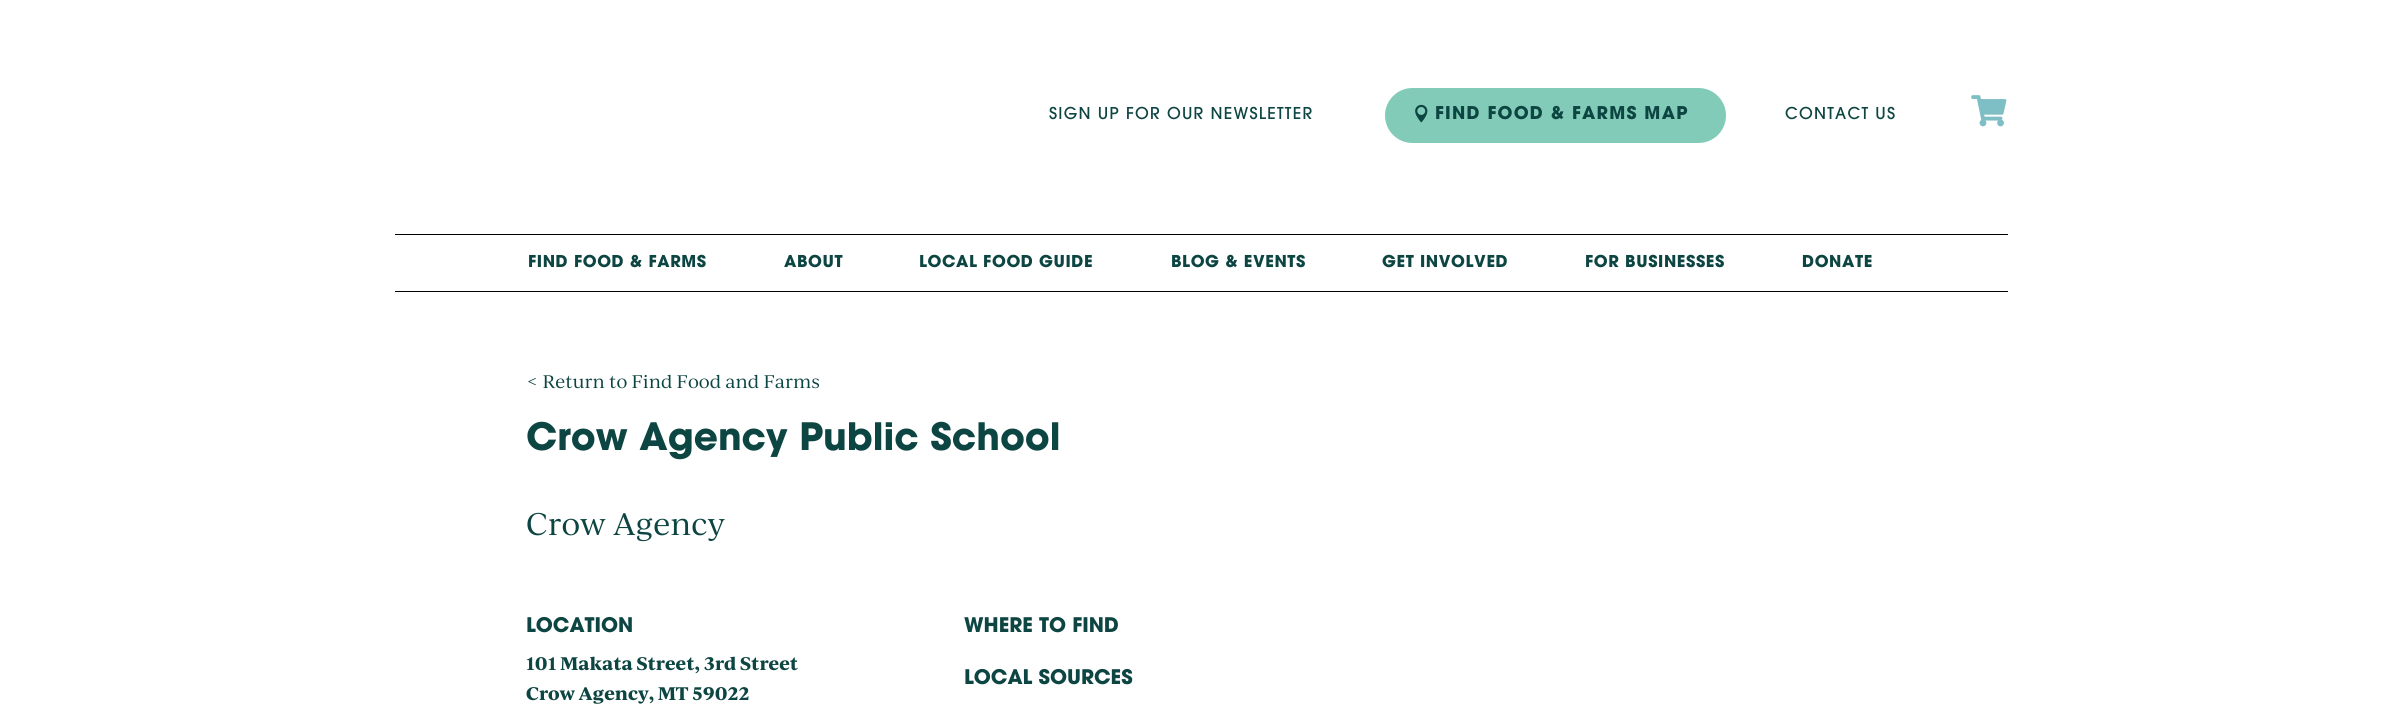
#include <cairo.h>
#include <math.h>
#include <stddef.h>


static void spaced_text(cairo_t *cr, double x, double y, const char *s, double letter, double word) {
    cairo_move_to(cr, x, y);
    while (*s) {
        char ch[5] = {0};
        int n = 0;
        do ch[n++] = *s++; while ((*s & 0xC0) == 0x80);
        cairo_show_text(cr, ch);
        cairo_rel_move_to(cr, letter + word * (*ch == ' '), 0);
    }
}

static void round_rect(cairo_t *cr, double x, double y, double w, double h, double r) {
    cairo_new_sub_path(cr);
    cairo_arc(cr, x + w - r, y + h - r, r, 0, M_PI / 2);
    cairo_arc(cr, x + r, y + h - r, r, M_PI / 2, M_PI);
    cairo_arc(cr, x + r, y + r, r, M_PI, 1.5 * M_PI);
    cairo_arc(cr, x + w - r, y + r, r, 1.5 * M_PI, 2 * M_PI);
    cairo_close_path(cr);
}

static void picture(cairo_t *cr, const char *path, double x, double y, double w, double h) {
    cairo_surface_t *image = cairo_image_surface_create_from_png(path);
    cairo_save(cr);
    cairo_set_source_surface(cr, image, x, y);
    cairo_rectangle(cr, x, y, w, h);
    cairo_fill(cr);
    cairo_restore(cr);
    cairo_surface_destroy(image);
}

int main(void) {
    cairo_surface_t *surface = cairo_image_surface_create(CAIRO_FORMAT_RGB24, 2401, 713);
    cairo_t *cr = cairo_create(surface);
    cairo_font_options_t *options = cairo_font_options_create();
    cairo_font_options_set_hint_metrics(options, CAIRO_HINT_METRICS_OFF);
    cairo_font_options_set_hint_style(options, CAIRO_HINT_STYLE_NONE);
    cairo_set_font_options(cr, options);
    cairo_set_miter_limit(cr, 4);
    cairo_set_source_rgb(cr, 1, 1, 1);
    cairo_paint(cr);
    cairo_select_font_face(cr, "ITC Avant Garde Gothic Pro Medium", CAIRO_FONT_SLANT_NORMAL, CAIRO_FONT_WEIGHT_NORMAL);
    cairo_set_font_size(cr, 16.25);
    cairo_set_source_rgb(cr, 0.051, 0.271, 0.259);
    spaced_text(cr, 1049, 119, "SIGN UP FOR OUR NEWSLETTER", 1.25, 0);
    cairo_set_source_rgb(cr, 0.51, 0.796, 0.722);
    round_rect(cr, 1385, 88, 341, 55, 27.5);
    cairo_fill(cr);
    picture(cr, "img1.png", 1415, 104, 13, 19);
    cairo_select_font_face(cr, "ITC Avant Garde Gothic Pro", CAIRO_FONT_SLANT_NORMAL, CAIRO_FONT_WEIGHT_BOLD);
    cairo_set_font_size(cr, 17.5);
    cairo_set_source_rgb(cr, 0.051, 0.271, 0.259);
    spaced_text(cr, 1435, 119, "FIND FOOD & FARMS MAP", 1.25, 0);
    cairo_select_font_face(cr, "ITC Avant Garde Gothic Pro Medium", CAIRO_FONT_SLANT_NORMAL, CAIRO_FONT_WEIGHT_NORMAL);
    cairo_set_font_size(cr, 16.25);
    spaced_text(cr, 1785, 119, "CONTACT US", 1.25, 0);
    picture(cr, "img2.png", 1971, 95, 36, 32);
    cairo_set_source_rgb(cr, 0, 0, 0);
    cairo_rectangle(cr, 395, 234, 1613, 1);
    cairo_fill(cr);
    cairo_rectangle(cr, 395, 291, 1613, 1);
    cairo_fill(cr);
    cairo_select_font_face(cr, "ITC Avant Garde Gothic Pro", CAIRO_FONT_SLANT_NORMAL, CAIRO_FONT_WEIGHT_BOLD);
    cairo_set_source_rgb(cr, 0.051, 0.271, 0.259);
    spaced_text(cr, 528, 267, "FIND FOOD & FARMS", 0.6, 0);
    spaced_text(cr, 784, 267, "ABOUT", 0.6, 0);
    spaced_text(cr, 919, 267, "LOCAL FOOD GUIDE", 0.6, 0);
    spaced_text(cr, 1171, 267, "BLOG & EVENTS", 0.6, 0);
    spaced_text(cr, 1382, 267, "GET INVOLVED", 0.6, 0);
    spaced_text(cr, 1585, 267, "FOR BUSINESSES", 0.6, 0);
    spaced_text(cr, 1802, 267, "DONATE", 0.6, 0);
    cairo_select_font_face(cr, "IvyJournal", CAIRO_FONT_SLANT_NORMAL, CAIRO_FONT_WEIGHT_NORMAL);
    cairo_set_font_size(cr, 17.5);
    cairo_move_to(cr, 526, 388);
    cairo_show_text(cr, "< Return to Find Food and Farms");
    cairo_select_font_face(cr, "ITC Avant Garde Gothic Pro", CAIRO_FONT_SLANT_NORMAL, CAIRO_FONT_WEIGHT_BOLD);
    cairo_set_font_size(cr, 37.5);
    cairo_move_to(cr, 526, 450);
    cairo_show_text(cr, "Crow Agency Public School");
    cairo_select_font_face(cr, "IvyJournal", CAIRO_FONT_SLANT_NORMAL, CAIRO_FONT_WEIGHT_NORMAL);
    cairo_set_font_size(cr, 30);
    cairo_move_to(cr, 526, 535);
    cairo_show_text(cr, "Crow Agency");
    cairo_select_font_face(cr, "ITC Avant Garde Gothic Pro", CAIRO_FONT_SLANT_NORMAL, CAIRO_FONT_WEIGHT_BOLD);
    cairo_set_font_size(cr, 20);
    cairo_move_to(cr, 526, 632);
    cairo_show_text(cr, "LOCATION");
    cairo_select_font_face(cr, "IvyJournal", CAIRO_FONT_SLANT_NORMAL, CAIRO_FONT_WEIGHT_BOLD);
    cairo_set_font_size(cr, 17.5);
    cairo_move_to(cr, 526, 670);
    cairo_show_text(cr, "101 Makata Street, 3rd Street");
    cairo_move_to(cr, 526, 700);
    cairo_show_text(cr, "Crow Agency, MT 59022");
    cairo_select_font_face(cr, "ITC Avant Garde Gothic Pro", CAIRO_FONT_SLANT_NORMAL, CAIRO_FONT_WEIGHT_BOLD);
    cairo_set_font_size(cr, 20);
    cairo_move_to(cr, 964, 632);
    cairo_show_text(cr, "WHERE TO FIND");
    cairo_move_to(cr, 964, 684);
    cairo_show_text(cr, "LOCAL SOURCES");
    cairo_surface_write_to_png(surface, "page.png");
    cairo_font_options_destroy(options);
    cairo_destroy(cr);
    cairo_surface_destroy(surface);
    return 0;
}
